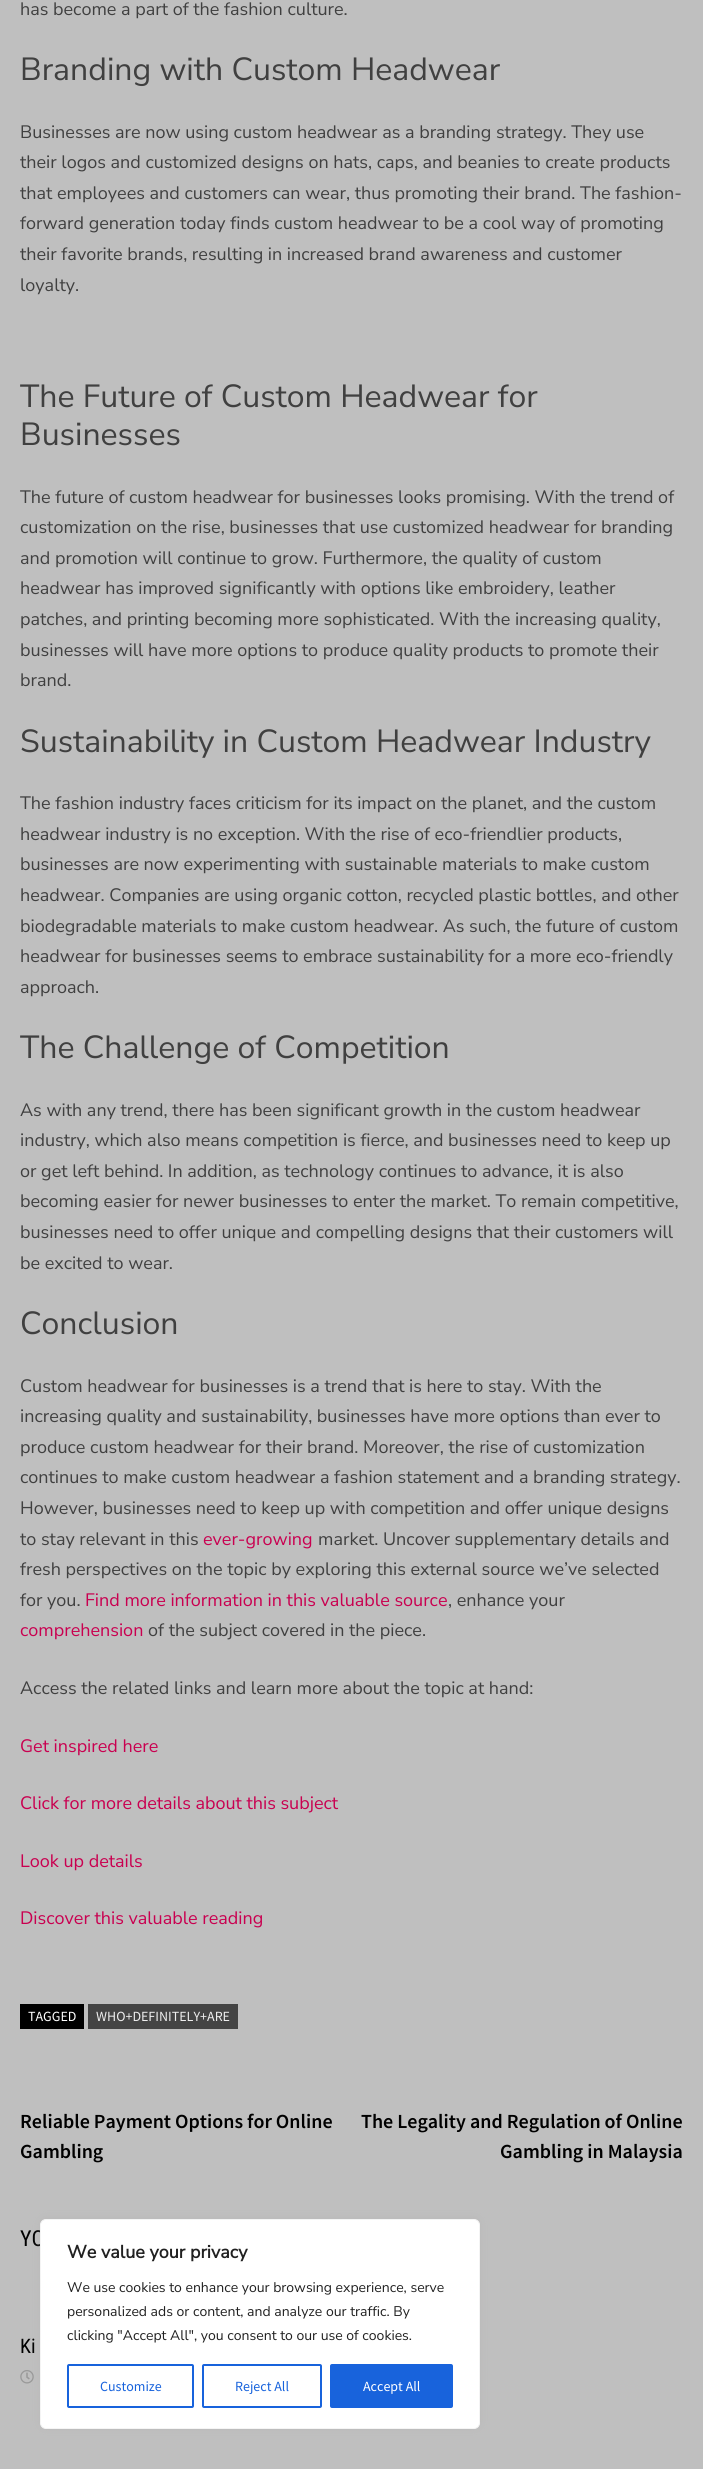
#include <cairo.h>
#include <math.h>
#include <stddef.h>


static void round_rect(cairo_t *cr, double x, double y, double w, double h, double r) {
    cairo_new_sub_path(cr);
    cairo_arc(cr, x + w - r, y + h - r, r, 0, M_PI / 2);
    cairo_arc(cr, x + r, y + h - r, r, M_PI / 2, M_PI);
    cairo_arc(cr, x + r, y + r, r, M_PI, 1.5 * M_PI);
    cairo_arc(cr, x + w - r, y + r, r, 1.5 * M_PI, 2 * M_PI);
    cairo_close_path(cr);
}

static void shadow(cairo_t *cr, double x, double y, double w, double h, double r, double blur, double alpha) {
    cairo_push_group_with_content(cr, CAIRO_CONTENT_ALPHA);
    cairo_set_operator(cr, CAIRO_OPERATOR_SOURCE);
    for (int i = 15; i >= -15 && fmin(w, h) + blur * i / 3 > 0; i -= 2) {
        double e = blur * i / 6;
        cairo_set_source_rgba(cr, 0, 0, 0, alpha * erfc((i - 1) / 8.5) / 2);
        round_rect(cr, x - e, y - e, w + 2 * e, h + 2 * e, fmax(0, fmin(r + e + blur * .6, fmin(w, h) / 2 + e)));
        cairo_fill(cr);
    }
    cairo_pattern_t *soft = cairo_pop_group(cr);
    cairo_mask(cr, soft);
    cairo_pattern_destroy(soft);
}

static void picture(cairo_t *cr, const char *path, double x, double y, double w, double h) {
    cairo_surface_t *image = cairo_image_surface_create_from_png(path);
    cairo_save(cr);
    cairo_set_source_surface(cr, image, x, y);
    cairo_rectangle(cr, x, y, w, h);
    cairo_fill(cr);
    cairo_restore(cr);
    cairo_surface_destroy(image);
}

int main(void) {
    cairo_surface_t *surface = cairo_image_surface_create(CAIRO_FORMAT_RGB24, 703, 2469);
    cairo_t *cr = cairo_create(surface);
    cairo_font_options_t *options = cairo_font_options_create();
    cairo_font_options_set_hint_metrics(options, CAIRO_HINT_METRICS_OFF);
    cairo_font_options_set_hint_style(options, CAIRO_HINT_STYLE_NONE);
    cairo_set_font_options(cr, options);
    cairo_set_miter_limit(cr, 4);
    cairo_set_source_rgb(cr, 0.749, 0.749, 0.749);
    cairo_paint(cr);
    cairo_select_font_face(cr, "Nunito Sans ExtraLight", CAIRO_FONT_SLANT_NORMAL, CAIRO_FONT_WEIGHT_NORMAL);
    cairo_set_font_size(cr, 18);
    cairo_set_source_rgb(cr, 0.251, 0.251, 0.251);
    cairo_move_to(cr, 20, 15);
    cairo_show_text(cr, "has become a part of the fashion culture.");
    cairo_set_font_size(cr, 32);
    cairo_move_to(cr, 20, 80);
    cairo_show_text(cr, "Branding with Custom Headwear");
    cairo_set_font_size(cr, 18);
    cairo_move_to(cr, 20, 138);
    cairo_show_text(cr, "Businesses are now using custom headwear as a branding strategy. They use");
    cairo_move_to(cr, 20, 168);
    cairo_show_text(cr, "their logos and customized designs on hats, caps, and beanies to create products");
    cairo_move_to(cr, 20, 199);
    cairo_show_text(cr, "that employees and customers can wear, thus promoting their brand. The fashion-");
    cairo_move_to(cr, 20, 229);
    cairo_show_text(cr, "forward generation today finds custom headwear to be a cool way of promoting");
    cairo_move_to(cr, 20, 260);
    cairo_show_text(cr, "their favorite brands, resulting in increased brand awareness and customer");
    cairo_move_to(cr, 20, 291);
    cairo_show_text(cr, "loyalty.");
    cairo_set_font_size(cr, 32);
    cairo_move_to(cr, 20, 407);
    cairo_show_text(cr, "The Future of Custom Headwear for");
    cairo_move_to(cr, 20, 445);
    cairo_show_text(cr, "Businesses");
    cairo_set_font_size(cr, 18);
    cairo_move_to(cr, 20, 503);
    cairo_show_text(cr, "The future of custom headwear for businesses looks promising. With the trend of");
    cairo_move_to(cr, 20, 533);
    cairo_show_text(cr, "customization on the rise, businesses that use customized headwear for branding");
    cairo_move_to(cr, 20, 564);
    cairo_show_text(cr, "and promotion will continue to grow. Furthermore, the quality of custom");
    cairo_move_to(cr, 20, 594);
    cairo_show_text(cr, "headwear has improved significantly with options like embroidery, leather");
    cairo_move_to(cr, 20, 625);
    cairo_show_text(cr, "patches, and printing becoming more sophisticated. With the increasing quality,");
    cairo_move_to(cr, 20, 656);
    cairo_show_text(cr, "businesses will have more options to produce quality products to promote their");
    cairo_move_to(cr, 20, 686);
    cairo_show_text(cr, "brand.");
    cairo_set_font_size(cr, 32);
    cairo_move_to(cr, 20, 752);
    cairo_show_text(cr, "Sustainability in Custom Headwear Industry");
    cairo_set_font_size(cr, 18);
    cairo_move_to(cr, 20, 809);
    cairo_show_text(cr, "The fashion industry faces criticism for its impact on the planet, and the custom");
    cairo_move_to(cr, 20, 840);
    cairo_show_text(cr, "headwear industry is no exception. With the rise of eco-friendlier products,");
    cairo_move_to(cr, 20, 870);
    cairo_show_text(cr, "businesses are now experimenting with sustainable materials to make custom");
    cairo_move_to(cr, 20, 901);
    cairo_show_text(cr, "headwear. Companies are using organic cotton, recycled plastic bottles, and other");
    cairo_move_to(cr, 20, 932);
    cairo_show_text(cr, "biodegradable materials to make custom headwear. As such, the future of custom");
    cairo_move_to(cr, 20, 962);
    cairo_show_text(cr, "headwear for businesses seems to embrace sustainability for a more eco-friendly");
    cairo_move_to(cr, 20, 993);
    cairo_show_text(cr, "approach.");
    cairo_set_font_size(cr, 32);
    cairo_move_to(cr, 20, 1058);
    cairo_show_text(cr, "The Challenge of Competition");
    cairo_set_font_size(cr, 18);
    cairo_move_to(cr, 20, 1116);
    cairo_show_text(cr, "As with any trend, there has been significant growth in the custom headwear");
    cairo_move_to(cr, 20, 1146);
    cairo_show_text(cr, "industry, which also means competition is fierce, and businesses need to keep up");
    cairo_move_to(cr, 20, 1177);
    cairo_show_text(cr, "or get left behind. In addition, as technology continues to advance, it is also");
    cairo_move_to(cr, 20, 1207);
    cairo_show_text(cr, "becoming easier for newer businesses to enter the market. To remain competitive,");
    cairo_move_to(cr, 20, 1238);
    cairo_show_text(cr, "businesses need to offer unique and compelling designs that their customers will");
    cairo_move_to(cr, 20, 1269);
    cairo_show_text(cr, "be excited to wear.");
    cairo_set_font_size(cr, 32);
    cairo_move_to(cr, 20, 1334);
    cairo_show_text(cr, "Conclusion");
    cairo_set_font_size(cr, 18);
    cairo_move_to(cr, 20, 1392);
    cairo_show_text(cr, "Custom headwear for businesses is a trend that is here to stay. With the");
    cairo_move_to(cr, 20, 1422);
    cairo_show_text(cr, "increasing quality and sustainability, businesses have more options than ever to");
    cairo_move_to(cr, 20, 1453);
    cairo_show_text(cr, "produce custom headwear for their brand. Moreover, the rise of customization");
    cairo_move_to(cr, 20, 1483);
    cairo_show_text(cr, "continues to make custom headwear a fashion statement and a branding strategy.");
    cairo_move_to(cr, 20, 1514);
    cairo_show_text(cr, "However, businesses need to keep up with competition and offer unique designs");
    cairo_move_to(cr, 20, 1545);
    cairo_show_text(cr, "to stay relevant in this");
    cairo_set_source_rgb(cr, 0.788, 0, 0.314);
    cairo_move_to(cr, 203, 1545);
    cairo_show_text(cr, "ever-growing");
    cairo_set_source_rgb(cr, 0.251, 0.251, 0.251);
    cairo_move_to(cr, 318, 1545);
    cairo_show_text(cr, "market. Uncover supplementary details and");
    cairo_move_to(cr, 20, 1575);
    cairo_show_text(cr, "fresh perspectives on the topic by exploring this external source we’ve selected");
    cairo_move_to(cr, 20, 1606);
    cairo_show_text(cr, "for you.");
    cairo_set_source_rgb(cr, 0.788, 0, 0.314);
    cairo_move_to(cr, 85, 1606);
    cairo_show_text(cr, "Find more information in this valuable source");
    cairo_set_source_rgb(cr, 0.251, 0.251, 0.251);
    cairo_move_to(cr, 448, 1606);
    cairo_show_text(cr, ", enhance your");
    cairo_set_source_rgb(cr, 0.788, 0, 0.314);
    cairo_move_to(cr, 20, 1636);
    cairo_show_text(cr, "comprehension");
    cairo_set_source_rgb(cr, 0.251, 0.251, 0.251);
    cairo_move_to(cr, 148, 1636);
    cairo_show_text(cr, "of the subject covered in the piece.");
    cairo_move_to(cr, 20, 1694);
    cairo_show_text(cr, "Access the related links and learn more about the topic at hand:");
    cairo_set_source_rgb(cr, 0.788, 0, 0.314);
    cairo_move_to(cr, 20, 1752);
    cairo_show_text(cr, "Get inspired here");
    cairo_move_to(cr, 20, 1809);
    cairo_show_text(cr, "Click for more details about this subject");
    cairo_move_to(cr, 20, 1867);
    cairo_show_text(cr, "Look up details");
    cairo_move_to(cr, 20, 1924);
    cairo_show_text(cr, "Discover this valuable reading");
    cairo_set_source_rgb(cr, 0, 0, 0);
    cairo_rectangle(cr, 20, 2004, 64, 25);
    cairo_fill(cr);
    cairo_select_font_face(cr, "Source Sans Pro", CAIRO_FONT_SLANT_NORMAL, CAIRO_FONT_WEIGHT_NORMAL);
    cairo_set_font_size(cr, 14);
    cairo_set_source_rgb(cr, 1, 1, 1);
    cairo_move_to(cr, 28, 2021);
    cairo_show_text(cr, "TAGGED");
    cairo_set_source_rgb(cr, 0.267, 0.267, 0.267);
    cairo_rectangle(cr, 88, 2004, 150, 25);
    cairo_fill(cr);
    cairo_set_source_rgb(cr, 0.933, 0.933, 0.933);
    cairo_move_to(cr, 96, 2021);
    cairo_show_text(cr, "WHO+DEFINITELY+ARE");
    cairo_select_font_face(cr, "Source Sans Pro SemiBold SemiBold", CAIRO_FONT_SLANT_NORMAL, CAIRO_FONT_WEIGHT_NORMAL);
    cairo_set_font_size(cr, 20);
    cairo_set_source_rgb(cr, 0, 0, 0);
    cairo_move_to(cr, 20, 2128);
    cairo_show_text(cr, "Reliable Payment Options for Online");
    cairo_move_to(cr, 20, 2158);
    cairo_show_text(cr, "Gambling");
    cairo_move_to(cr, 361, 2128);
    cairo_show_text(cr, "The Legality and Regulation of Online");
    cairo_move_to(cr, 500, 2158);
    cairo_show_text(cr, "Gambling in Malaysia");
    cairo_select_font_face(cr, "Roboto Condensed", CAIRO_FONT_SLANT_NORMAL, CAIRO_FONT_WEIGHT_NORMAL);
    cairo_set_font_size(cr, 22);
    cairo_move_to(cr, 20, 2246);
    cairo_show_text(cr, "YO");
    cairo_set_font_size(cr, 20);
    cairo_move_to(cr, 20, 2353);
    cairo_show_text(cr, "Ki");
    picture(cr, "img1.png", 20, 2370, 14, 14);
    cairo_set_source_rgb(cr, 0.675, 0.671, 0.671);
    shadow(cr, 40, 2218, 440, 210, 6, 5, 0.3);
    cairo_set_source_rgb(cr, 1, 1, 1);
    round_rect(cr, 40.5, 2219.5, 439, 209, 5.5);
    cairo_fill_preserve(cr);
    cairo_set_source_rgb(cr, 0.957, 0.957, 0.957);
    cairo_set_line_width(cr, 1);
    cairo_stroke(cr);
    cairo_select_font_face(cr, "Nunito Sans", CAIRO_FONT_SLANT_NORMAL, CAIRO_FONT_WEIGHT_BOLD);
    cairo_set_font_size(cr, 18);
    cairo_set_source_rgb(cr, 0.129, 0.129, 0.129);
    cairo_move_to(cr, 67, 2258);
    cairo_show_text(cr, "We value your privacy");
    cairo_select_font_face(cr, "Nunito Sans ExtraLight", CAIRO_FONT_SLANT_NORMAL, CAIRO_FONT_WEIGHT_NORMAL);
    cairo_set_font_size(cr, 14);
    cairo_move_to(cr, 67, 2292);
    cairo_show_text(cr, "We use cookies to enhance your browsing experience, serve");
    cairo_move_to(cr, 67, 2316);
    cairo_show_text(cr, "personalized ads or content, and analyze our traffic. By");
    cairo_move_to(cr, 67, 2340);
    cairo_show_text(cr, "clicking \"Accept All\", you consent to our use of cookies.");
    round_rect(cr, 68, 2365, 125, 42, 1);
    cairo_set_source_rgb(cr, 0.094, 0.388, 0.863);
    cairo_set_line_width(cr, 2);
    cairo_stroke(cr);
    cairo_select_font_face(cr, "Source Sans Pro", CAIRO_FONT_SLANT_NORMAL, CAIRO_FONT_WEIGHT_NORMAL);
    cairo_move_to(cr, 100, 2391);
    cairo_show_text(cr, "Customize");
    round_rect(cr, 203, 2365, 118, 42, 1);
    cairo_stroke(cr);
    cairo_move_to(cr, 235, 2391);
    cairo_show_text(cr, "Reject All");
    round_rect(cr, 331, 2365, 121, 42, 1);
    cairo_fill_preserve(cr);
    cairo_stroke(cr);
    cairo_set_source_rgb(cr, 1, 1, 1);
    cairo_move_to(cr, 363, 2391);
    cairo_show_text(cr, "Accept All");
    cairo_surface_write_to_png(surface, "page.png");
    cairo_font_options_destroy(options);
    cairo_destroy(cr);
    cairo_surface_destroy(surface);
    return 0;
}
